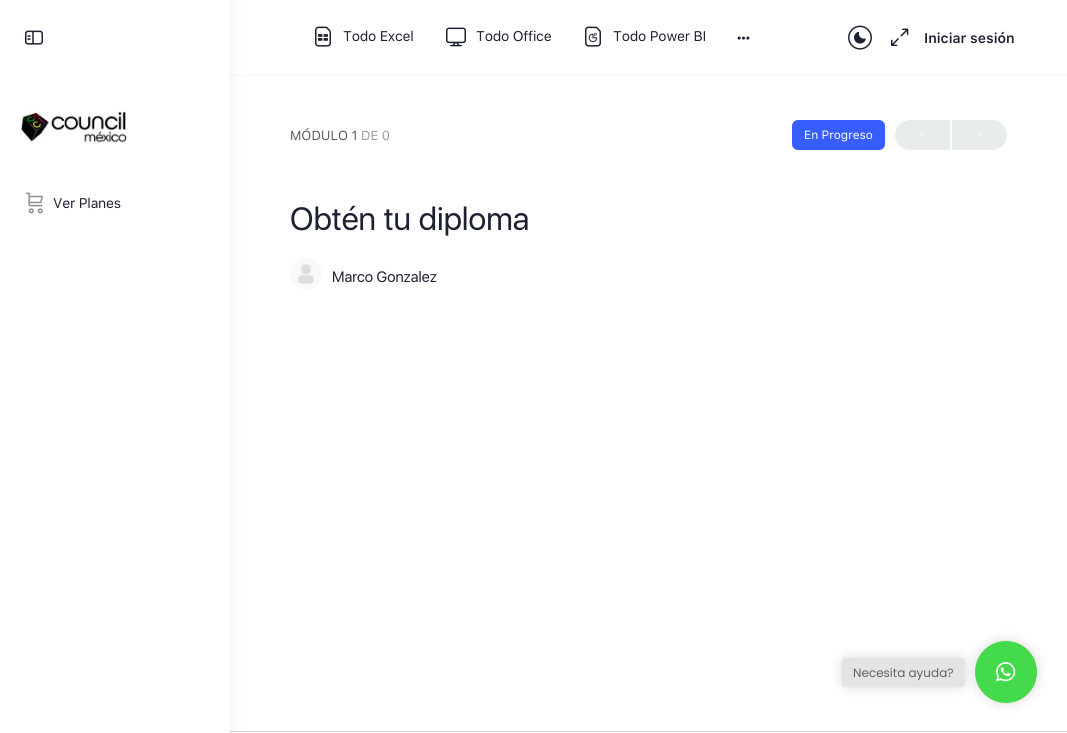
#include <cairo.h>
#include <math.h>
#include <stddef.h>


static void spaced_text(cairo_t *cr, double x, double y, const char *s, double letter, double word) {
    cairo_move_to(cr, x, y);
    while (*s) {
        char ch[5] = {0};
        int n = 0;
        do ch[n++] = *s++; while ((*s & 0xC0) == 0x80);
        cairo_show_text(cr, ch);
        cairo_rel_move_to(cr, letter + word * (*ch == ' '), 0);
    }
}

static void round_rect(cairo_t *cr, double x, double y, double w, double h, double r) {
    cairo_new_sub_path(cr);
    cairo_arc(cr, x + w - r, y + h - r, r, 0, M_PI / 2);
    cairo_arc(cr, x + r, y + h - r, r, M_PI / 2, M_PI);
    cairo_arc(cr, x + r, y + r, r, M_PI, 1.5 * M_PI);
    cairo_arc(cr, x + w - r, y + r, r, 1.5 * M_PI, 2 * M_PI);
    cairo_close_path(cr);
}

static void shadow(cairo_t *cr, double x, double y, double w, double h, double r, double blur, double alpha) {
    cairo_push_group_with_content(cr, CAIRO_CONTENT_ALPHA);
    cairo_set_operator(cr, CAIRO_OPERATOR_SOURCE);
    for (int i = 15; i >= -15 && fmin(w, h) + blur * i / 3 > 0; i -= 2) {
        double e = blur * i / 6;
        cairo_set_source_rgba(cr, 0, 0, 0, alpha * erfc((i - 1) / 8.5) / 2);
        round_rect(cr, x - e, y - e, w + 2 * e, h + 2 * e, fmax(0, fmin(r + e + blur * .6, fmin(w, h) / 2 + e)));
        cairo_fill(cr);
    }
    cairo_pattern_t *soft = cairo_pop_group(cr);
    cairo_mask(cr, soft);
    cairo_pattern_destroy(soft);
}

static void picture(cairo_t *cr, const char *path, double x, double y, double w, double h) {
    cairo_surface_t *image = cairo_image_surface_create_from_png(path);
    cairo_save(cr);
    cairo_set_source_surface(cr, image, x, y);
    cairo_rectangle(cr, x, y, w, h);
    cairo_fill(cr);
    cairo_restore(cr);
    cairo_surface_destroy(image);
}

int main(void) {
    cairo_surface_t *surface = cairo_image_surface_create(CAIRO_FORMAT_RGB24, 1067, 733);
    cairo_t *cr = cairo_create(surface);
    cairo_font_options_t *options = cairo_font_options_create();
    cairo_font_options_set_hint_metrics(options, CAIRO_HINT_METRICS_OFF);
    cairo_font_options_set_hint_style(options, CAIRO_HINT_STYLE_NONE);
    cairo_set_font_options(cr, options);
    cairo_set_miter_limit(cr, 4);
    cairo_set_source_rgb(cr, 1, 1, 1);
    cairo_paint(cr);
    cairo_set_source_rgb(cr, 0.965, 0.965, 0.973);
    cairo_rectangle(cr, 230, 75, 837, 1);
    cairo_fill(cr);
    cairo_set_source_rgb(cr, 0.839, 0.851, 0.867);
    cairo_rectangle(cr, 230, 731, 837, 1);
    cairo_fill(cr);
    cairo_set_source_rgb(cr, 0.071, 0.169, 0.275);
    shadow(cr, 0, 3, 230, 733, 0, 6.5, 0.1);
    cairo_set_source_rgb(cr, 1, 1, 1);
    cairo_rectangle(cr, 0, 0, 230, 733);
    cairo_fill(cr);
    picture(cr, "img1.png", 25, 30, 18, 15);
    picture(cr, "img2.png", 20, 111, 107, 33);
    picture(cr, "img3.png", 26, 192, 17, 22);
    cairo_select_font_face(cr, "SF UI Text", CAIRO_FONT_SLANT_NORMAL, CAIRO_FONT_WEIGHT_NORMAL);
    cairo_set_font_size(cr, 14);
    cairo_set_source_rgb(cr, 0.118, 0.129, 0.196);
    spaced_text(cr, 53, 208, "Ver Planes", -0.25, 0);
    picture(cr, "img4.png", 315, 26, 16, 21);
    spaced_text(cr, 343, 41, "Todo Excel", -0.25, 0);
    picture(cr, "img5.png", 446, 27, 20, 20);
    spaced_text(cr, 476, 41, "Todo Office", -0.25, 0);
    picture(cr, "img6.png", 585, 26, 16, 21);
    spaced_text(cr, 613, 41, "Todo Power BI", -0.25, 0);
    picture(cr, "img7.png", 737, 36, 13, 4);
    picture(cr, "img8.png", 848, 25, 24, 25);
    picture(cr, "img9.png", 891, 28, 18, 19);
    cairo_select_font_face(cr, "SF UI Text SemiBold", CAIRO_FONT_SLANT_NORMAL, CAIRO_FONT_WEIGHT_NORMAL);
    cairo_move_to(cr, 924, 43);
    cairo_show_text(cr, "Iniciar sesión");
    cairo_select_font_face(cr, "SF UI Text", CAIRO_FONT_SLANT_NORMAL, CAIRO_FONT_WEIGHT_NORMAL);
    cairo_set_font_size(cr, 13);
    cairo_set_source_rgb(cr, 0.353, 0.353, 0.353);
    cairo_move_to(cr, 290, 140);
    cairo_show_text(cr, "MÓDULO 1");
    cairo_set_source_rgb(cr, 0.608, 0.612, 0.624);
    cairo_move_to(cr, 361, 140);
    cairo_show_text(cr, "DE 0");
    cairo_set_source_rgb(cr, 0.22, 0.365, 1);
    round_rect(cr, 792, 120, 93, 30, 6);
    cairo_fill(cr);
    cairo_set_font_size(cr, 12);
    cairo_set_source_rgb(cr, 1, 1, 1);
    cairo_move_to(cr, 804, 139);
    cairo_show_text(cr, "En Progreso");
    cairo_set_source_rgb(cr, 0.914, 0.922, 0.929);
    cairo_new_path(cr);
    cairo_move_to(cr, 910, 120);
    cairo_line_to(cr, 950, 120);
    cairo_line_to(cr, 950, 150);
    cairo_line_to(cr, 910, 150);
    cairo_curve_to(cr, 901.5, 150, 895, 143.5, 895, 135);
    cairo_curve_to(cr, 895, 126.5, 901.5, 120, 910, 120);
    cairo_close_path(cr);
    cairo_fill(cr);
    picture(cr, "img10.png", 920, 131, 4, 8);
    cairo_new_path(cr);
    cairo_move_to(cr, 952, 120);
    cairo_line_to(cr, 992, 120);
    cairo_curve_to(cr, 1000.5, 120, 1007, 126.5, 1007, 135);
    cairo_curve_to(cr, 1007, 143.5, 1000.5, 150, 992, 150);
    cairo_line_to(cr, 952, 150);
    cairo_close_path(cr);
    cairo_fill(cr);
    picture(cr, "img11.png", 977, 131, 4, 8);
    cairo_select_font_face(cr, "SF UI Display", CAIRO_FONT_SLANT_NORMAL, CAIRO_FONT_WEIGHT_NORMAL);
    cairo_set_font_size(cr, 32);
    cairo_set_source_rgb(cr, 0.118, 0.129, 0.196);
    cairo_move_to(cr, 290, 230);
    cairo_show_text(cr, "Obtén tu diploma");
    picture(cr, "img12.png", 290, 258, 32, 32);
    cairo_set_font_size(cr, 15);
    cairo_move_to(cr, 332, 282);
    cairo_show_text(cr, "Marco Gonzalez");
    cairo_set_source_rgb(cr, 0, 0, 0);
    shadow(cr, 980, 646, 52, 52, 26, 7.5, 0.3);
    cairo_set_source_rgb(cr, 0.263, 0.859, 0.294);
    cairo_arc(cr, 1006, 672, 31, 0, 2 * M_PI);
    cairo_fill(cr);
    cairo_set_source_rgb(cr, 0, 0, 0);
    shadow(cr, 847, 663, 113, 19, 0, 7.5, 0.3);
    cairo_set_source_rgb(cr, 0.894, 0.894, 0.894);
    round_rect(cr, 842, 658, 123, 29, 3);
    cairo_fill(cr);
    cairo_select_font_face(cr, "Poppins", CAIRO_FONT_SLANT_NORMAL, CAIRO_FONT_WEIGHT_NORMAL);
    cairo_set_font_size(cr, 12);
    cairo_set_source_rgb(cr, 0.38, 0.38, 0.38);
    cairo_move_to(cr, 853, 677);
    cairo_show_text(cr, "Necesita ayuda?");
    picture(cr, "img13.png", 996, 662, 20, 20);
    cairo_surface_write_to_png(surface, "page.png");
    cairo_font_options_destroy(options);
    cairo_destroy(cr);
    cairo_surface_destroy(surface);
    return 0;
}
